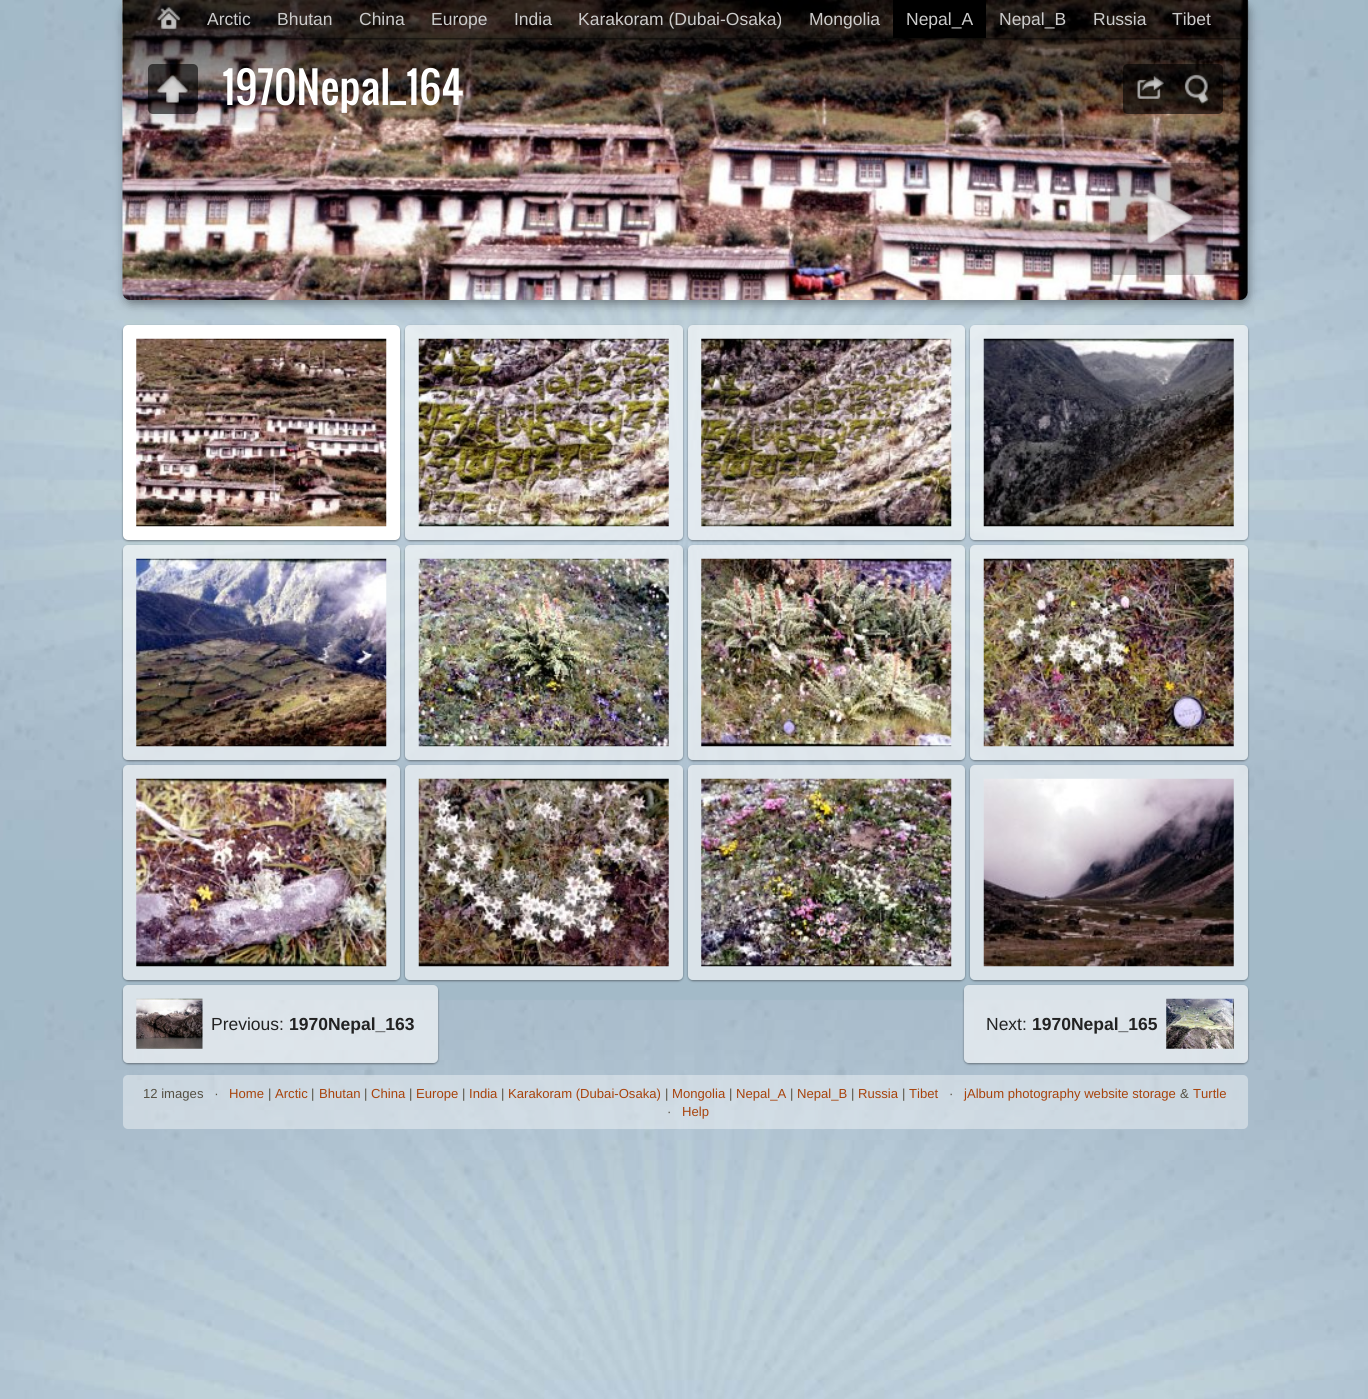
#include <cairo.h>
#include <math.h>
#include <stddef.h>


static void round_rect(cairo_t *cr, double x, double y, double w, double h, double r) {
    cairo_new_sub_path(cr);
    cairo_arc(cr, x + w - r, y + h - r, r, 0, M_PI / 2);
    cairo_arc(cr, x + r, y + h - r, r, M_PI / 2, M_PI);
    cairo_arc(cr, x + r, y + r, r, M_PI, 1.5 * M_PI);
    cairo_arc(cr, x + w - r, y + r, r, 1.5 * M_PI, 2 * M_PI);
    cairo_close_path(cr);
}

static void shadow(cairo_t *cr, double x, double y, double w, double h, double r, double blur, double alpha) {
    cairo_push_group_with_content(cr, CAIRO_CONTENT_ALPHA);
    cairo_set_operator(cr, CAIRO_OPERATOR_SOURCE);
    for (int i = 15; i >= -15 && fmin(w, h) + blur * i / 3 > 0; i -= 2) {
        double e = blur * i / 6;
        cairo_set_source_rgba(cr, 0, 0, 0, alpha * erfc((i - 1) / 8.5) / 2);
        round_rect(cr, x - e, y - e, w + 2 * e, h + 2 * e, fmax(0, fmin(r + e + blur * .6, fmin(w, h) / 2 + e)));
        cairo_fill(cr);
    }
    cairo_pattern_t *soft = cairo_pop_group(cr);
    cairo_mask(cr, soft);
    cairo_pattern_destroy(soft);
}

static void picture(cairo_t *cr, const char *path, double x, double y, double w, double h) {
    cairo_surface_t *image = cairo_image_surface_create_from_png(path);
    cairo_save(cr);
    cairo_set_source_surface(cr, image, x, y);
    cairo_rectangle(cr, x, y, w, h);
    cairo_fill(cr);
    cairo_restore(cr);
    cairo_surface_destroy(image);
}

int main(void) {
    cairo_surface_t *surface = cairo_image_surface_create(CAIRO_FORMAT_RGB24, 1368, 1399);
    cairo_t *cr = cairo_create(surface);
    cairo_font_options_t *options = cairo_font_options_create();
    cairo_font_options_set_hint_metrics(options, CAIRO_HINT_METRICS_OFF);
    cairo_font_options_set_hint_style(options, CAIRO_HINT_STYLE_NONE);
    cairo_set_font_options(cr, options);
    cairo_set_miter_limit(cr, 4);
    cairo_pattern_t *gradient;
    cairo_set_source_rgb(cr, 1, 1, 1);
    cairo_paint(cr);
    picture(cr, "img1.png", 0, 0, 1368, 1399);
    cairo_set_source_rgb(cr, 0, 0, 0);
    shadow(cr, 124, 4, 1125, 300, 8, 5, 0.4);
    cairo_set_source_rgba(cr, 0, 0, 0, 0.2);
    cairo_new_path(cr);
    cairo_move_to(cr, 123, 0);
    cairo_line_to(cr, 1248, 0);
    cairo_line_to(cr, 1248, 292);
    cairo_curve_to(cr, 1248, 296.5, 1244.5, 300, 1240, 300);
    cairo_line_to(cr, 131, 300);
    cairo_curve_to(cr, 126.5, 300, 123, 296.5, 123, 292);
    cairo_close_path(cr);
    cairo_fill(cr);
    picture(cr, "img2.png", 122, 0, 1126, 300);
    cairo_save(cr);
    cairo_set_fill_rule(cr, CAIRO_FILL_RULE_EVEN_ODD);
    cairo_new_path(cr);
    cairo_move_to(cr, 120, 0);
    cairo_line_to(cr, 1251, 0);
    cairo_line_to(cr, 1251, 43);
    cairo_line_to(cr, 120, 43);
    cairo_close_path(cr);
    cairo_move_to(cr, 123, 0);
    cairo_line_to(cr, 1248, 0);
    cairo_line_to(cr, 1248, 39);
    cairo_line_to(cr, 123, 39);
    cairo_close_path(cr);
    cairo_clip(cr);
    cairo_set_source_rgb(cr, 0, 0, 0);
    shadow(cr, 123, 1, 1125, 39, 0, 0.5, 0.4);
    cairo_restore(cr);
    cairo_set_source_rgba(cr, 0, 0, 0, 0.7);
    cairo_rectangle(cr, 123, 0, 1125, 39);
    cairo_fill(cr);
    cairo_set_source_rgba(cr, 0, 0, 0, 0.4);
    cairo_rectangle(cr, 123, 38, 1125, 1);
    cairo_fill(cr);
    picture(cr, "img3.png", 157, 7, 24, 22);
    cairo_select_font_face(cr, "Liberation Sans", CAIRO_FONT_SLANT_NORMAL, CAIRO_FONT_WEIGHT_NORMAL);
    cairo_set_font_size(cr, 17.5);
    cairo_set_source_rgb(cr, 0.8, 0.8, 0.8);
    cairo_move_to(cr, 207, 25);
    cairo_show_text(cr, "Arctic");
    cairo_move_to(cr, 277, 25);
    cairo_show_text(cr, "Bhutan");
    cairo_move_to(cr, 359, 25);
    cairo_show_text(cr, "China");
    cairo_move_to(cr, 431, 25);
    cairo_show_text(cr, "Europe");
    cairo_move_to(cr, 514, 25);
    cairo_show_text(cr, "India");
    cairo_move_to(cr, 578, 25);
    cairo_show_text(cr, "Karakoram (Dubai-Osaka)");
    cairo_move_to(cr, 809, 25);
    cairo_show_text(cr, "Mongolia");
    cairo_set_source_rgb(cr, 0, 0, 0);
    cairo_rectangle(cr, 893, 0, 93, 38);
    cairo_fill(cr);
    cairo_set_source_rgb(cr, 0.8, 0.8, 0.8);
    cairo_move_to(cr, 906, 25);
    cairo_show_text(cr, "Nepal_A");
    cairo_move_to(cr, 999, 25);
    cairo_show_text(cr, "Nepal_B");
    cairo_move_to(cr, 1093, 25);
    cairo_show_text(cr, "Russia");
    cairo_move_to(cr, 1172, 25);
    cairo_show_text(cr, "Tibet");
    gradient = cairo_pattern_create_linear(685, 39, 685, 131);
    cairo_pattern_add_color_stop_rgba(gradient, 0, 0, 0, 0, 0.6);
    cairo_pattern_add_color_stop_rgba(gradient, 1, 0, 0, 0, 0);
    cairo_set_source(cr, gradient);
    cairo_pattern_destroy(gradient);
    cairo_rectangle(cr, 123, 39, 1125, 89);
    cairo_fill(cr);
    cairo_set_source_rgba(cr, 0, 0, 0, 0.6);
    round_rect(cr, 148, 64, 50, 50, 5);
    cairo_fill(cr);
    picture(cr, "img4.png", 157, 75, 31, 28);
    cairo_select_font_face(cr, "Oswald", CAIRO_FONT_SLANT_NORMAL, CAIRO_FONT_WEIGHT_NORMAL);
    cairo_set_font_size(cr, 42);
    cairo_set_source_rgb(cr, 1, 1, 1);
    cairo_move_to(cr, 222, 105);
    cairo_show_text(cr, "1970Nepal_164");
    cairo_set_source_rgba(cr, 0, 0, 0, 0.6);
    cairo_new_path(cr);
    cairo_move_to(cr, 1128, 64);
    cairo_line_to(cr, 1173, 64);
    cairo_line_to(cr, 1173, 114);
    cairo_line_to(cr, 1128, 114);
    cairo_curve_to(cr, 1125, 114, 1123, 112, 1123, 109);
    cairo_line_to(cr, 1123, 69);
    cairo_curve_to(cr, 1123, 66, 1125, 64, 1128, 64);
    cairo_close_path(cr);
    cairo_fill(cr);
    picture(cr, "img5.png", 1137, 76, 27, 23);
    cairo_new_path(cr);
    cairo_move_to(cr, 1173, 64);
    cairo_line_to(cr, 1218, 64);
    cairo_curve_to(cr, 1221, 64, 1223, 66, 1223, 69);
    cairo_line_to(cr, 1223, 109);
    cairo_curve_to(cr, 1223, 112, 1221, 114, 1218, 114);
    cairo_line_to(cr, 1173, 114);
    cairo_close_path(cr);
    cairo_fill(cr);
    picture(cr, "img6.png", 1184, 74, 25, 30);
    cairo_set_source_rgba(cr, 0, 0, 0, 0.2);
    round_rect(cr, 1110, 163, 113, 112, 5);
    cairo_fill(cr);
    picture(cr, "img7.png", 1147, 191, 46, 53);
    cairo_set_source_rgb(cr, 0, 0, 0);
    shadow(cr, 123, 326, 277, 215, 5, 1, 0.4);
    cairo_set_source_rgb(cr, 1, 1, 1);
    round_rect(cr, 123, 325, 277, 215, 5);
    cairo_fill(cr);
    picture(cr, "img8.png", 136, 338, 251, 189);
    cairo_save(cr);
    cairo_set_fill_rule(cr, CAIRO_FILL_RULE_EVEN_ODD);
    cairo_new_path(cr);
    cairo_move_to(cr, 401, 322);
    cairo_line_to(cr, 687, 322);
    cairo_line_to(cr, 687, 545);
    cairo_line_to(cr, 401, 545);
    cairo_close_path(cr);
    cairo_move_to(cr, 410, 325);
    cairo_line_to(cr, 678, 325);
    cairo_curve_to(cr, 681, 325, 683, 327, 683, 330);
    cairo_line_to(cr, 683, 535);
    cairo_curve_to(cr, 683, 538, 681, 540, 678, 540);
    cairo_line_to(cr, 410, 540);
    cairo_curve_to(cr, 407, 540, 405, 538, 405, 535);
    cairo_line_to(cr, 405, 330);
    cairo_curve_to(cr, 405, 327, 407, 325, 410, 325);
    cairo_close_path(cr);
    cairo_clip(cr);
    cairo_set_source_rgb(cr, 0, 0, 0);
    shadow(cr, 405, 326, 278, 215, 5, 1, 0.4);
    cairo_restore(cr);
    cairo_set_source_rgba(cr, 1, 1, 1, 0.6);
    round_rect(cr, 405, 325, 278, 215, 5);
    cairo_fill(cr);
    picture(cr, "img9.png", 418, 338, 251, 189);
    cairo_save(cr);
    cairo_set_fill_rule(cr, CAIRO_FILL_RULE_EVEN_ODD);
    cairo_new_path(cr);
    cairo_move_to(cr, 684, 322);
    cairo_line_to(cr, 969, 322);
    cairo_line_to(cr, 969, 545);
    cairo_line_to(cr, 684, 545);
    cairo_close_path(cr);
    cairo_move_to(cr, 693, 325);
    cairo_line_to(cr, 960, 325);
    cairo_curve_to(cr, 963, 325, 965, 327, 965, 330);
    cairo_line_to(cr, 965, 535);
    cairo_curve_to(cr, 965, 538, 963, 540, 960, 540);
    cairo_line_to(cr, 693, 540);
    cairo_curve_to(cr, 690, 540, 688, 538, 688, 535);
    cairo_line_to(cr, 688, 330);
    cairo_curve_to(cr, 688, 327, 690, 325, 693, 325);
    cairo_close_path(cr);
    cairo_clip(cr);
    cairo_set_source_rgb(cr, 0, 0, 0);
    shadow(cr, 688, 326, 277, 215, 5, 1, 0.4);
    cairo_restore(cr);
    round_rect(cr, 688, 325, 277, 215, 5);
    cairo_fill(cr);
    picture(cr, "img10.png", 701, 338, 251, 189);
    cairo_save(cr);
    cairo_set_fill_rule(cr, CAIRO_FILL_RULE_EVEN_ODD);
    cairo_new_path(cr);
    cairo_move_to(cr, 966, 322);
    cairo_line_to(cr, 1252, 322);
    cairo_line_to(cr, 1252, 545);
    cairo_line_to(cr, 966, 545);
    cairo_close_path(cr);
    cairo_move_to(cr, 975, 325);
    cairo_line_to(cr, 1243, 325);
    cairo_curve_to(cr, 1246, 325, 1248, 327, 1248, 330);
    cairo_line_to(cr, 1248, 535);
    cairo_curve_to(cr, 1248, 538, 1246, 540, 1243, 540);
    cairo_line_to(cr, 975, 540);
    cairo_curve_to(cr, 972, 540, 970, 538, 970, 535);
    cairo_line_to(cr, 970, 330);
    cairo_curve_to(cr, 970, 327, 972, 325, 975, 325);
    cairo_close_path(cr);
    cairo_clip(cr);
    cairo_set_source_rgb(cr, 0, 0, 0);
    shadow(cr, 970, 326, 278, 215, 5, 1, 0.4);
    cairo_restore(cr);
    round_rect(cr, 970, 325, 278, 215, 5);
    cairo_fill(cr);
    picture(cr, "img11.png", 983, 338, 251, 189);
    cairo_save(cr);
    cairo_set_fill_rule(cr, CAIRO_FILL_RULE_EVEN_ODD);
    cairo_new_path(cr);
    cairo_move_to(cr, 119, 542);
    cairo_line_to(cr, 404, 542);
    cairo_line_to(cr, 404, 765);
    cairo_line_to(cr, 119, 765);
    cairo_close_path(cr);
    cairo_move_to(cr, 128, 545);
    cairo_line_to(cr, 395, 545);
    cairo_curve_to(cr, 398, 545, 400, 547, 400, 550);
    cairo_line_to(cr, 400, 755);
    cairo_curve_to(cr, 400, 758, 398, 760, 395, 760);
    cairo_line_to(cr, 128, 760);
    cairo_curve_to(cr, 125, 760, 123, 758, 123, 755);
    cairo_line_to(cr, 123, 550);
    cairo_curve_to(cr, 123, 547, 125, 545, 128, 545);
    cairo_close_path(cr);
    cairo_clip(cr);
    cairo_set_source_rgb(cr, 0, 0, 0);
    shadow(cr, 123, 546, 277, 215, 5, 1, 0.4);
    cairo_restore(cr);
    round_rect(cr, 123, 545, 277, 215, 5);
    cairo_fill(cr);
    picture(cr, "img12.png", 136, 558, 251, 189);
    cairo_save(cr);
    cairo_set_fill_rule(cr, CAIRO_FILL_RULE_EVEN_ODD);
    cairo_new_path(cr);
    cairo_move_to(cr, 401, 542);
    cairo_line_to(cr, 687, 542);
    cairo_line_to(cr, 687, 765);
    cairo_line_to(cr, 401, 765);
    cairo_close_path(cr);
    cairo_move_to(cr, 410, 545);
    cairo_line_to(cr, 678, 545);
    cairo_curve_to(cr, 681, 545, 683, 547, 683, 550);
    cairo_line_to(cr, 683, 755);
    cairo_curve_to(cr, 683, 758, 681, 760, 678, 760);
    cairo_line_to(cr, 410, 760);
    cairo_curve_to(cr, 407, 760, 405, 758, 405, 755);
    cairo_line_to(cr, 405, 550);
    cairo_curve_to(cr, 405, 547, 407, 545, 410, 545);
    cairo_close_path(cr);
    cairo_clip(cr);
    cairo_set_source_rgb(cr, 0, 0, 0);
    shadow(cr, 405, 546, 278, 215, 5, 1, 0.4);
    cairo_restore(cr);
    round_rect(cr, 405, 545, 278, 215, 5);
    cairo_fill(cr);
    picture(cr, "img13.png", 418, 558, 251, 189);
    cairo_save(cr);
    cairo_set_fill_rule(cr, CAIRO_FILL_RULE_EVEN_ODD);
    cairo_new_path(cr);
    cairo_move_to(cr, 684, 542);
    cairo_line_to(cr, 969, 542);
    cairo_line_to(cr, 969, 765);
    cairo_line_to(cr, 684, 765);
    cairo_close_path(cr);
    cairo_move_to(cr, 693, 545);
    cairo_line_to(cr, 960, 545);
    cairo_curve_to(cr, 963, 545, 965, 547, 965, 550);
    cairo_line_to(cr, 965, 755);
    cairo_curve_to(cr, 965, 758, 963, 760, 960, 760);
    cairo_line_to(cr, 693, 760);
    cairo_curve_to(cr, 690, 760, 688, 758, 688, 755);
    cairo_line_to(cr, 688, 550);
    cairo_curve_to(cr, 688, 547, 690, 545, 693, 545);
    cairo_close_path(cr);
    cairo_clip(cr);
    cairo_set_source_rgb(cr, 0, 0, 0);
    shadow(cr, 688, 546, 277, 215, 5, 1, 0.4);
    cairo_restore(cr);
    round_rect(cr, 688, 545, 277, 215, 5);
    cairo_fill(cr);
    picture(cr, "img14.png", 701, 558, 251, 189);
    cairo_save(cr);
    cairo_set_fill_rule(cr, CAIRO_FILL_RULE_EVEN_ODD);
    cairo_new_path(cr);
    cairo_move_to(cr, 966, 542);
    cairo_line_to(cr, 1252, 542);
    cairo_line_to(cr, 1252, 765);
    cairo_line_to(cr, 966, 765);
    cairo_close_path(cr);
    cairo_move_to(cr, 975, 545);
    cairo_line_to(cr, 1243, 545);
    cairo_curve_to(cr, 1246, 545, 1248, 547, 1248, 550);
    cairo_line_to(cr, 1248, 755);
    cairo_curve_to(cr, 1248, 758, 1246, 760, 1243, 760);
    cairo_line_to(cr, 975, 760);
    cairo_curve_to(cr, 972, 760, 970, 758, 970, 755);
    cairo_line_to(cr, 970, 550);
    cairo_curve_to(cr, 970, 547, 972, 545, 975, 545);
    cairo_close_path(cr);
    cairo_clip(cr);
    cairo_set_source_rgb(cr, 0, 0, 0);
    shadow(cr, 970, 546, 278, 215, 5, 1, 0.4);
    cairo_restore(cr);
    round_rect(cr, 970, 545, 278, 215, 5);
    cairo_fill(cr);
    picture(cr, "img15.png", 983, 558, 251, 189);
    cairo_save(cr);
    cairo_set_fill_rule(cr, CAIRO_FILL_RULE_EVEN_ODD);
    cairo_new_path(cr);
    cairo_move_to(cr, 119, 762);
    cairo_line_to(cr, 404, 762);
    cairo_line_to(cr, 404, 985);
    cairo_line_to(cr, 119, 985);
    cairo_close_path(cr);
    cairo_move_to(cr, 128, 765);
    cairo_line_to(cr, 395, 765);
    cairo_curve_to(cr, 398, 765, 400, 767, 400, 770);
    cairo_line_to(cr, 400, 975);
    cairo_curve_to(cr, 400, 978, 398, 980, 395, 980);
    cairo_line_to(cr, 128, 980);
    cairo_curve_to(cr, 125, 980, 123, 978, 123, 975);
    cairo_line_to(cr, 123, 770);
    cairo_curve_to(cr, 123, 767, 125, 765, 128, 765);
    cairo_close_path(cr);
    cairo_clip(cr);
    cairo_set_source_rgb(cr, 0, 0, 0);
    shadow(cr, 123, 766, 277, 215, 5, 1, 0.4);
    cairo_restore(cr);
    round_rect(cr, 123, 765, 277, 215, 5);
    cairo_fill(cr);
    picture(cr, "img16.png", 136, 778, 251, 189);
    cairo_save(cr);
    cairo_set_fill_rule(cr, CAIRO_FILL_RULE_EVEN_ODD);
    cairo_new_path(cr);
    cairo_move_to(cr, 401, 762);
    cairo_line_to(cr, 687, 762);
    cairo_line_to(cr, 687, 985);
    cairo_line_to(cr, 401, 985);
    cairo_close_path(cr);
    cairo_move_to(cr, 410, 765);
    cairo_line_to(cr, 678, 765);
    cairo_curve_to(cr, 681, 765, 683, 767, 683, 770);
    cairo_line_to(cr, 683, 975);
    cairo_curve_to(cr, 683, 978, 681, 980, 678, 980);
    cairo_line_to(cr, 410, 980);
    cairo_curve_to(cr, 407, 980, 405, 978, 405, 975);
    cairo_line_to(cr, 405, 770);
    cairo_curve_to(cr, 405, 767, 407, 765, 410, 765);
    cairo_close_path(cr);
    cairo_clip(cr);
    cairo_set_source_rgb(cr, 0, 0, 0);
    shadow(cr, 405, 766, 278, 215, 5, 1, 0.4);
    cairo_restore(cr);
    round_rect(cr, 405, 765, 278, 215, 5);
    cairo_fill(cr);
    picture(cr, "img17.png", 418, 778, 251, 189);
    cairo_save(cr);
    cairo_set_fill_rule(cr, CAIRO_FILL_RULE_EVEN_ODD);
    cairo_new_path(cr);
    cairo_move_to(cr, 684, 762);
    cairo_line_to(cr, 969, 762);
    cairo_line_to(cr, 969, 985);
    cairo_line_to(cr, 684, 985);
    cairo_close_path(cr);
    cairo_move_to(cr, 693, 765);
    cairo_line_to(cr, 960, 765);
    cairo_curve_to(cr, 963, 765, 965, 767, 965, 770);
    cairo_line_to(cr, 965, 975);
    cairo_curve_to(cr, 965, 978, 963, 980, 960, 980);
    cairo_line_to(cr, 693, 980);
    cairo_curve_to(cr, 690, 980, 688, 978, 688, 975);
    cairo_line_to(cr, 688, 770);
    cairo_curve_to(cr, 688, 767, 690, 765, 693, 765);
    cairo_close_path(cr);
    cairo_clip(cr);
    cairo_set_source_rgb(cr, 0, 0, 0);
    shadow(cr, 688, 766, 277, 215, 5, 1, 0.4);
    cairo_restore(cr);
    round_rect(cr, 688, 765, 277, 215, 5);
    cairo_fill(cr);
    picture(cr, "img18.png", 701, 778, 251, 189);
    cairo_save(cr);
    cairo_set_fill_rule(cr, CAIRO_FILL_RULE_EVEN_ODD);
    cairo_new_path(cr);
    cairo_move_to(cr, 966, 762);
    cairo_line_to(cr, 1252, 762);
    cairo_line_to(cr, 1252, 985);
    cairo_line_to(cr, 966, 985);
    cairo_close_path(cr);
    cairo_move_to(cr, 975, 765);
    cairo_line_to(cr, 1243, 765);
    cairo_curve_to(cr, 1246, 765, 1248, 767, 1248, 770);
    cairo_line_to(cr, 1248, 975);
    cairo_curve_to(cr, 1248, 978, 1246, 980, 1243, 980);
    cairo_line_to(cr, 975, 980);
    cairo_curve_to(cr, 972, 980, 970, 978, 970, 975);
    cairo_line_to(cr, 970, 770);
    cairo_curve_to(cr, 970, 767, 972, 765, 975, 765);
    cairo_close_path(cr);
    cairo_clip(cr);
    cairo_set_source_rgb(cr, 0, 0, 0);
    shadow(cr, 970, 766, 278, 215, 5, 1, 0.4);
    cairo_restore(cr);
    round_rect(cr, 970, 765, 278, 215, 5);
    cairo_fill(cr);
    picture(cr, "img19.png", 983, 778, 251, 189);
    cairo_save(cr);
    cairo_set_fill_rule(cr, CAIRO_FILL_RULE_EVEN_ODD);
    cairo_new_path(cr);
    cairo_move_to(cr, 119, 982);
    cairo_line_to(cr, 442, 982);
    cairo_line_to(cr, 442, 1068);
    cairo_line_to(cr, 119, 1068);
    cairo_close_path(cr);
    cairo_move_to(cr, 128, 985);
    cairo_line_to(cr, 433, 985);
    cairo_curve_to(cr, 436, 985, 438, 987, 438, 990);
    cairo_line_to(cr, 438, 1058);
    cairo_curve_to(cr, 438, 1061, 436, 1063, 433, 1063);
    cairo_line_to(cr, 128, 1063);
    cairo_curve_to(cr, 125, 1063, 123, 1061, 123, 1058);
    cairo_line_to(cr, 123, 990);
    cairo_curve_to(cr, 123, 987, 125, 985, 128, 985);
    cairo_close_path(cr);
    cairo_clip(cr);
    cairo_set_source_rgb(cr, 0, 0, 0);
    shadow(cr, 123, 986, 315, 78, 5, 1, 0.4);
    cairo_restore(cr);
    round_rect(cr, 123, 985, 315, 78, 5);
    cairo_fill(cr);
    picture(cr, "img20.png", 136, 998, 67, 51);
    cairo_select_font_face(cr, "Liberation Sans", CAIRO_FONT_SLANT_NORMAL, CAIRO_FONT_WEIGHT_NORMAL);
    cairo_set_font_size(cr, 17.5);
    cairo_set_source_rgb(cr, 0.133, 0.133, 0.133);
    cairo_move_to(cr, 211, 1030);
    cairo_show_text(cr, "Previous:");
    cairo_select_font_face(cr, "Liberation Sans", CAIRO_FONT_SLANT_NORMAL, CAIRO_FONT_WEIGHT_BOLD);
    cairo_move_to(cr, 289, 1030);
    cairo_show_text(cr, "1970Nepal_163");
    cairo_save(cr);
    cairo_set_fill_rule(cr, CAIRO_FILL_RULE_EVEN_ODD);
    cairo_new_path(cr);
    cairo_move_to(cr, 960, 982);
    cairo_line_to(cr, 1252, 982);
    cairo_line_to(cr, 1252, 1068);
    cairo_line_to(cr, 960, 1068);
    cairo_close_path(cr);
    cairo_move_to(cr, 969, 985);
    cairo_line_to(cr, 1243, 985);
    cairo_curve_to(cr, 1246, 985, 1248, 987, 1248, 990);
    cairo_line_to(cr, 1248, 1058);
    cairo_curve_to(cr, 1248, 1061, 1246, 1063, 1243, 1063);
    cairo_line_to(cr, 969, 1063);
    cairo_curve_to(cr, 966, 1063, 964, 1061, 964, 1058);
    cairo_line_to(cr, 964, 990);
    cairo_curve_to(cr, 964, 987, 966, 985, 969, 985);
    cairo_close_path(cr);
    cairo_clip(cr);
    cairo_set_source_rgb(cr, 0, 0, 0);
    shadow(cr, 964, 986, 284, 78, 5, 1, 0.4);
    cairo_restore(cr);
    cairo_set_source_rgba(cr, 1, 1, 1, 0.6);
    round_rect(cr, 964, 985, 284, 78, 5);
    cairo_fill(cr);
    cairo_select_font_face(cr, "Liberation Sans", CAIRO_FONT_SLANT_NORMAL, CAIRO_FONT_WEIGHT_NORMAL);
    cairo_set_source_rgb(cr, 0.133, 0.133, 0.133);
    cairo_move_to(cr, 986, 1030);
    cairo_show_text(cr, "Next:");
    cairo_select_font_face(cr, "Liberation Sans", CAIRO_FONT_SLANT_NORMAL, CAIRO_FONT_WEIGHT_BOLD);
    cairo_move_to(cr, 1032, 1030);
    cairo_show_text(cr, "1970Nepal_165");
    picture(cr, "img21.png", 1166, 998, 68, 51);
    cairo_set_source_rgba(cr, 1, 1, 1, 0.4);
    round_rect(cr, 123, 1075, 1125, 54, 5);
    cairo_fill(cr);
    cairo_select_font_face(cr, "Liberation Sans", CAIRO_FONT_SLANT_NORMAL, CAIRO_FONT_WEIGHT_NORMAL);
    cairo_set_font_size(cr, 13.1);
    cairo_set_source_rgb(cr, 0.333, 0.314, 0.263);
    cairo_move_to(cr, 143, 1098);
    cairo_show_text(cr, "12 images   ·");
    cairo_set_source_rgb(cr, 0.655, 0.263, 0.047);
    cairo_move_to(cr, 229, 1098);
    cairo_show_text(cr, "Home");
    cairo_set_source_rgb(cr, 0.333, 0.314, 0.263);
    cairo_move_to(cr, 268, 1098);
    cairo_show_text(cr, "|");
    cairo_set_source_rgb(cr, 0.655, 0.263, 0.047);
    cairo_move_to(cr, 275, 1098);
    cairo_show_text(cr, "Arctic");
    cairo_set_source_rgb(cr, 0.333, 0.314, 0.263);
    cairo_move_to(cr, 311, 1098);
    cairo_show_text(cr, "|");
    cairo_set_source_rgb(cr, 0.655, 0.263, 0.047);
    cairo_move_to(cr, 319, 1098);
    cairo_show_text(cr, "Bhutan");
    cairo_set_source_rgb(cr, 0.333, 0.314, 0.263);
    cairo_move_to(cr, 364, 1098);
    cairo_show_text(cr, "|");
    cairo_set_source_rgb(cr, 0.655, 0.263, 0.047);
    cairo_move_to(cr, 371, 1098);
    cairo_show_text(cr, "China");
    cairo_set_source_rgb(cr, 0.333, 0.314, 0.263);
    cairo_move_to(cr, 409, 1098);
    cairo_show_text(cr, "|");
    cairo_set_source_rgb(cr, 0.655, 0.263, 0.047);
    cairo_move_to(cr, 416, 1098);
    cairo_show_text(cr, "Europe");
    cairo_set_source_rgb(cr, 0.333, 0.314, 0.263);
    cairo_move_to(cr, 462, 1098);
    cairo_show_text(cr, "|");
    cairo_set_source_rgb(cr, 0.655, 0.263, 0.047);
    cairo_move_to(cr, 469, 1098);
    cairo_show_text(cr, "India");
    cairo_set_source_rgb(cr, 0.333, 0.314, 0.263);
    cairo_move_to(cr, 501, 1098);
    cairo_show_text(cr, "|");
    cairo_set_source_rgb(cr, 0.655, 0.263, 0.047);
    cairo_move_to(cr, 508, 1098);
    cairo_show_text(cr, "Karakoram (Dubai-Osaka)");
    cairo_set_source_rgb(cr, 0.333, 0.314, 0.263);
    cairo_move_to(cr, 665, 1098);
    cairo_show_text(cr, "|");
    cairo_set_source_rgb(cr, 0.655, 0.263, 0.047);
    cairo_move_to(cr, 672, 1098);
    cairo_show_text(cr, "Mongolia");
    cairo_set_source_rgb(cr, 0.333, 0.314, 0.263);
    cairo_move_to(cr, 729, 1098);
    cairo_show_text(cr, "|");
    cairo_set_source_rgb(cr, 0.655, 0.263, 0.047);
    cairo_move_to(cr, 736, 1098);
    cairo_show_text(cr, "Nepal_A");
    cairo_set_source_rgb(cr, 0.333, 0.314, 0.263);
    cairo_move_to(cr, 790, 1098);
    cairo_show_text(cr, "|");
    cairo_set_source_rgb(cr, 0.655, 0.263, 0.047);
    cairo_move_to(cr, 797, 1098);
    cairo_show_text(cr, "Nepal_B");
    cairo_set_source_rgb(cr, 0.333, 0.314, 0.263);
    cairo_move_to(cr, 851, 1098);
    cairo_show_text(cr, "|");
    cairo_set_source_rgb(cr, 0.655, 0.263, 0.047);
    cairo_move_to(cr, 858, 1098);
    cairo_show_text(cr, "Russia");
    cairo_set_source_rgb(cr, 0.333, 0.314, 0.263);
    cairo_move_to(cr, 902, 1098);
    cairo_show_text(cr, "|");
    cairo_set_source_rgb(cr, 0.655, 0.263, 0.047);
    cairo_move_to(cr, 909, 1098);
    cairo_show_text(cr, "Tibet");
    cairo_set_source_rgb(cr, 0.333, 0.314, 0.263);
    cairo_move_to(cr, 949, 1098);
    cairo_show_text(cr, "·");
    cairo_set_source_rgb(cr, 0.655, 0.263, 0.047);
    cairo_move_to(cr, 964, 1098);
    cairo_show_text(cr, "jAlbum photography website storage");
    cairo_set_source_rgb(cr, 0.333, 0.314, 0.263);
    cairo_move_to(cr, 1180, 1098);
    cairo_show_text(cr, "&");
    cairo_set_source_rgb(cr, 0.655, 0.263, 0.047);
    cairo_move_to(cr, 1193, 1098);
    cairo_show_text(cr, "Turtle");
    cairo_set_source_rgb(cr, 0.333, 0.314, 0.263);
    cairo_move_to(cr, 667, 1116);
    cairo_show_text(cr, "·");
    cairo_set_source_rgb(cr, 0.655, 0.263, 0.047);
    cairo_move_to(cr, 682, 1116);
    cairo_show_text(cr, "Help");
    cairo_surface_write_to_png(surface, "page.png");
    cairo_font_options_destroy(options);
    cairo_destroy(cr);
    cairo_surface_destroy(surface);
    return 0;
}
